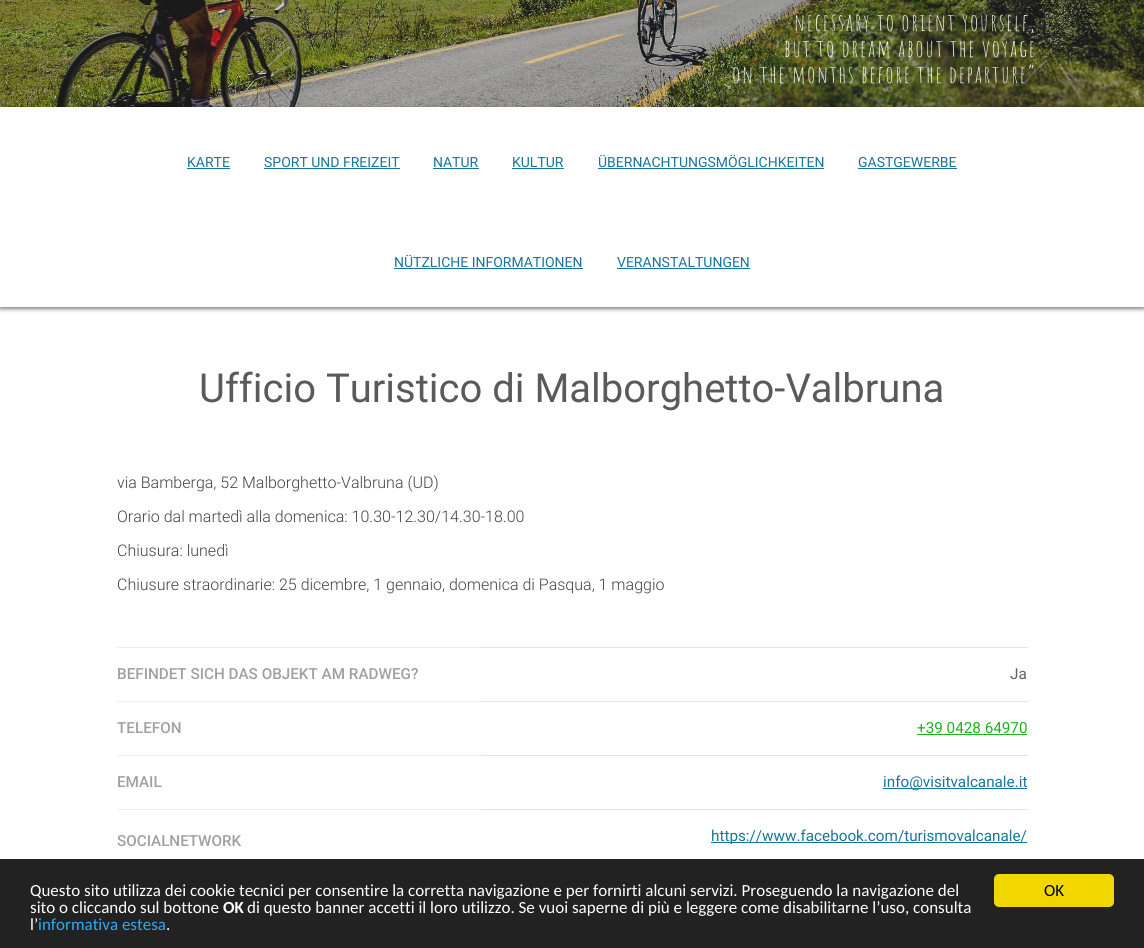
#include <cairo.h>
#include <math.h>
#include <stddef.h>


static void spaced_text(cairo_t *cr, double x, double y, const char *s, double letter, double word) {
    cairo_move_to(cr, x, y);
    while (*s) {
        char ch[5] = {0};
        int n = 0;
        do ch[n++] = *s++; while ((*s & 0xC0) == 0x80);
        cairo_show_text(cr, ch);
        cairo_rel_move_to(cr, letter + word * (*ch == ' '), 0);
    }
}

static void round_rect(cairo_t *cr, double x, double y, double w, double h, double r) {
    cairo_new_sub_path(cr);
    cairo_arc(cr, x + w - r, y + h - r, r, 0, M_PI / 2);
    cairo_arc(cr, x + r, y + h - r, r, M_PI / 2, M_PI);
    cairo_arc(cr, x + r, y + r, r, M_PI, 1.5 * M_PI);
    cairo_arc(cr, x + w - r, y + r, r, 1.5 * M_PI, 2 * M_PI);
    cairo_close_path(cr);
}

static void shadow(cairo_t *cr, double x, double y, double w, double h, double r, double blur, double alpha) {
    cairo_push_group_with_content(cr, CAIRO_CONTENT_ALPHA);
    cairo_set_operator(cr, CAIRO_OPERATOR_SOURCE);
    for (int i = 15; i >= -15 && fmin(w, h) + blur * i / 3 > 0; i -= 2) {
        double e = blur * i / 6;
        cairo_set_source_rgba(cr, 0, 0, 0, alpha * erfc((i - 1) / 8.5) / 2);
        round_rect(cr, x - e, y - e, w + 2 * e, h + 2 * e, fmax(0, fmin(r + e + blur * .6, fmin(w, h) / 2 + e)));
        cairo_fill(cr);
    }
    cairo_pattern_t *soft = cairo_pop_group(cr);
    cairo_mask(cr, soft);
    cairo_pattern_destroy(soft);
}

static void picture(cairo_t *cr, const char *path, double x, double y, double w, double h) {
    cairo_surface_t *image = cairo_image_surface_create_from_png(path);
    cairo_save(cr);
    cairo_set_source_surface(cr, image, x, y);
    cairo_rectangle(cr, x, y, w, h);
    cairo_fill(cr);
    cairo_restore(cr);
    cairo_surface_destroy(image);
}

int main(void) {
    cairo_surface_t *surface = cairo_image_surface_create(CAIRO_FORMAT_RGB24, 1144, 948);
    cairo_t *cr = cairo_create(surface);
    cairo_font_options_t *options = cairo_font_options_create();
    cairo_font_options_set_hint_metrics(options, CAIRO_HINT_METRICS_OFF);
    cairo_font_options_set_hint_style(options, CAIRO_HINT_STYLE_NONE);
    cairo_set_font_options(cr, options);
    cairo_set_miter_limit(cr, 4);
    cairo_set_source_rgb(cr, 1, 1, 1);
    cairo_paint(cr);
    picture(cr, "img1.png", 0, 0, 1144, 107);
    cairo_select_font_face(cr, "Amatic SC", CAIRO_FONT_SLANT_NORMAL, CAIRO_FONT_WEIGHT_NORMAL);
    cairo_set_font_size(cr, 24);
    cairo_set_source_rgb(cr, 0.949, 0.984, 0.929);
    spaced_text(cr, 794, 31, "necessary to orient yourself,", 1.6, 0);
    spaced_text(cr, 784, 57, "but to dream about the voyage", 1.6, 0);
    spaced_text(cr, 732, 83, "on the months before the departure”", 1.6, 0);
    cairo_save(cr);
    cairo_set_fill_rule(cr, CAIRO_FILL_RULE_EVEN_ODD);
    cairo_new_path(cr);
    cairo_move_to(cr, 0, 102);
    cairo_line_to(cr, 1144, 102);
    cairo_line_to(cr, 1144, 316);
    cairo_line_to(cr, 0, 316);
    cairo_close_path(cr);
    cairo_move_to(cr, 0, 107);
    cairo_line_to(cr, 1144, 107);
    cairo_line_to(cr, 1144, 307);
    cairo_line_to(cr, 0, 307);
    cairo_close_path(cr);
    cairo_clip(cr);
    cairo_set_source_rgb(cr, 0, 0, 0);
    shadow(cr, 0, 109, 1144, 200, 0, 2, 0.5);
    cairo_restore(cr);
    cairo_select_font_face(cr, "Roboto", CAIRO_FONT_SLANT_NORMAL, CAIRO_FONT_WEIGHT_NORMAL);
    cairo_set_font_size(cr, 14);
    cairo_set_source_rgb(cr, 0.09, 0.463, 0.608);
    cairo_move_to(cr, 187, 167);
    cairo_show_text(cr, "KARTE");
    cairo_rectangle(cr, 187, 168, 43, 1);
    cairo_fill(cr);
    cairo_move_to(cr, 264, 167);
    cairo_show_text(cr, "SPORT UND FREIZEIT");
    cairo_rectangle(cr, 264, 168, 136, 1);
    cairo_fill(cr);
    cairo_move_to(cr, 433, 167);
    cairo_show_text(cr, "NATUR");
    cairo_rectangle(cr, 433, 168, 46, 1);
    cairo_fill(cr);
    cairo_move_to(cr, 512, 167);
    cairo_show_text(cr, "KULTUR");
    cairo_rectangle(cr, 512, 168, 52, 1);
    cairo_fill(cr);
    cairo_move_to(cr, 598, 167);
    cairo_show_text(cr, "ÜBERNACHTUNGSMÖGLICHKEITEN");
    cairo_rectangle(cr, 598, 168, 226, 1);
    cairo_fill(cr);
    cairo_move_to(cr, 858, 167);
    cairo_show_text(cr, "GASTGEWERBE");
    cairo_rectangle(cr, 858, 168, 99, 1);
    cairo_fill(cr);
    cairo_move_to(cr, 394, 267);
    cairo_show_text(cr, "NÜTZLICHE INFORMATIONEN");
    cairo_rectangle(cr, 394, 268, 189, 1);
    cairo_fill(cr);
    cairo_move_to(cr, 617, 267);
    cairo_show_text(cr, "VERANSTALTUNGEN");
    cairo_rectangle(cr, 617, 268, 133, 1);
    cairo_fill(cr);
    cairo_set_source_rgb(cr, 0.937, 0.937, 0.937);
    cairo_rectangle(cr, 117, 701, 365, 1);
    cairo_fill(cr);
    cairo_rectangle(cr, 117, 647, 365, 1);
    cairo_fill(cr);
    cairo_rectangle(cr, 117, 755, 365, 1);
    cairo_fill(cr);
    cairo_rectangle(cr, 117, 809, 365, 1);
    cairo_fill(cr);
    cairo_set_font_size(cr, 40);
    cairo_set_source_rgb(cr, 0.353, 0.353, 0.353);
    cairo_move_to(cr, 199, 402);
    cairo_show_text(cr, "Ufficio Turistico di Malborghetto-Valbruna");
    cairo_select_font_face(cr, "Roboto Light", CAIRO_FONT_SLANT_NORMAL, CAIRO_FONT_WEIGHT_NORMAL);
    cairo_set_font_size(cr, 16);
    cairo_set_source_rgb(cr, 0.267, 0.267, 0.267);
    cairo_move_to(cr, 117, 488);
    cairo_show_text(cr, "via Bamberga, 52 Malborghetto-Valbruna (UD)");
    cairo_move_to(cr, 117, 522);
    cairo_show_text(cr, "Orario dal martedì alla domenica: 10.30-12.30/14.30-18.00");
    cairo_move_to(cr, 117, 556);
    cairo_show_text(cr, "Chiusura: lunedì");
    cairo_move_to(cr, 117, 590);
    cairo_show_text(cr, "Chiusure straordinarie: 25 dicembre, 1 gennaio, domenica di Pasqua, 1 maggio");
    cairo_select_font_face(cr, "Roboto Medium", CAIRO_FONT_SLANT_NORMAL, CAIRO_FONT_WEIGHT_NORMAL);
    cairo_set_font_size(cr, 15.25);
    cairo_set_source_rgb(cr, 0.627, 0.627, 0.627);
    cairo_move_to(cr, 117, 679);
    cairo_show_text(cr, "BEFINDET SICH DAS OBJEKT AM RADWEG?");
    cairo_set_source_rgb(cr, 0.894, 0.894, 0.894);
    cairo_rectangle(cr, 481, 647, 547, 1);
    cairo_fill(cr);
    cairo_rectangle(cr, 481, 701, 547, 1);
    cairo_fill(cr);
    cairo_select_font_face(cr, "Roboto", CAIRO_FONT_SLANT_NORMAL, CAIRO_FONT_WEIGHT_NORMAL);
    cairo_set_source_rgb(cr, 0.38, 0.38, 0.38);
    cairo_move_to(cr, 1010, 679);
    cairo_show_text(cr, "Ja");
    cairo_select_font_face(cr, "Roboto Medium", CAIRO_FONT_SLANT_NORMAL, CAIRO_FONT_WEIGHT_NORMAL);
    cairo_set_source_rgb(cr, 0.627, 0.627, 0.627);
    cairo_move_to(cr, 117, 733);
    cairo_show_text(cr, "TELEFON");
    cairo_set_source_rgb(cr, 0.894, 0.894, 0.894);
    cairo_rectangle(cr, 481, 755, 547, 1);
    cairo_fill(cr);
    cairo_select_font_face(cr, "Roboto", CAIRO_FONT_SLANT_NORMAL, CAIRO_FONT_WEIGHT_NORMAL);
    cairo_set_source_rgb(cr, 0.125, 0.694, 0.114);
    cairo_move_to(cr, 917, 733);
    cairo_show_text(cr, "+39 0428 64970");
    cairo_rectangle(cr, 917, 734, 110, 1);
    cairo_fill(cr);
    cairo_select_font_face(cr, "Roboto Medium", CAIRO_FONT_SLANT_NORMAL, CAIRO_FONT_WEIGHT_NORMAL);
    cairo_set_source_rgb(cr, 0.627, 0.627, 0.627);
    cairo_move_to(cr, 117, 787);
    cairo_show_text(cr, "EMAIL");
    cairo_set_source_rgb(cr, 0.894, 0.894, 0.894);
    cairo_rectangle(cr, 481, 809, 547, 1);
    cairo_fill(cr);
    cairo_set_source_rgb(cr, 0.09, 0.463, 0.608);
    cairo_rectangle(cr, 883, 788, 144, 1);
    cairo_fill(cr);
    cairo_select_font_face(cr, "Roboto", CAIRO_FONT_SLANT_NORMAL, CAIRO_FONT_WEIGHT_NORMAL);
    cairo_move_to(cr, 883, 787);
    cairo_show_text(cr, "info@visitvalcanale.it");
    cairo_select_font_face(cr, "Roboto Medium", CAIRO_FONT_SLANT_NORMAL, CAIRO_FONT_WEIGHT_NORMAL);
    cairo_set_source_rgb(cr, 0.627, 0.627, 0.627);
    cairo_move_to(cr, 117, 846);
    cairo_show_text(cr, "SOCIALNETWORK");
    cairo_set_source_rgb(cr, 0.09, 0.463, 0.608);
    cairo_rectangle(cr, 711, 842, 316, 1);
    cairo_fill(cr);
    cairo_select_font_face(cr, "Roboto", CAIRO_FONT_SLANT_NORMAL, CAIRO_FONT_WEIGHT_NORMAL);
    cairo_move_to(cr, 711, 841);
    cairo_show_text(cr, "https://www.facebook.com/turismovalcanale/");
    cairo_set_source_rgb(cr, 0.133, 0.133, 0.133);
    cairo_rectangle(cr, 0, 859, 1144, 89);
    cairo_fill(cr);
    cairo_select_font_face(cr, "Carlito", CAIRO_FONT_SLANT_NORMAL, CAIRO_FONT_WEIGHT_NORMAL);
    cairo_set_font_size(cr, 17);
    cairo_set_source_rgb(cr, 1, 1, 1);
    cairo_move_to(cr, 30, 896);
    cairo_show_text(cr, "Questo sito utilizza dei cookie tecnici per consentire la corretta navigazione e per fornirti alcuni servizi. Proseguendo la navigazione del");
    cairo_move_to(cr, 30, 913);
    cairo_show_text(cr, "sito o cliccando sul bottone");
    cairo_select_font_face(cr, "Carlito", CAIRO_FONT_SLANT_NORMAL, CAIRO_FONT_WEIGHT_BOLD);
    cairo_move_to(cr, 223, 913);
    cairo_show_text(cr, "OK");
    cairo_select_font_face(cr, "Carlito", CAIRO_FONT_SLANT_NORMAL, CAIRO_FONT_WEIGHT_NORMAL);
    cairo_move_to(cr, 247, 913);
    cairo_show_text(cr, "di questo banner accetti il loro utilizzo. Se vuoi saperne di più e leggere come disabilitarne l’uso, consulta");
    cairo_move_to(cr, 30, 930);
    cairo_show_text(cr, "l’");
    cairo_set_source_rgb(cr, 0.192, 0.659, 0.941);
    cairo_move_to(cr, 38, 930);
    cairo_show_text(cr, "informativa estesa");
    cairo_set_source_rgb(cr, 1, 1, 1);
    cairo_move_to(cr, 166, 930);
    cairo_show_text(cr, ".");
    cairo_set_source_rgb(cr, 0.945, 0.839, 0);
    round_rect(cr, 994, 874, 120, 33, 5);
    cairo_fill(cr);
    cairo_set_source_rgb(cr, 0, 0, 0);
    cairo_move_to(cr, 1044, 896);
    cairo_show_text(cr, "OK");
    cairo_surface_write_to_png(surface, "page.png");
    cairo_font_options_destroy(options);
    cairo_destroy(cr);
    cairo_surface_destroy(surface);
    return 0;
}
